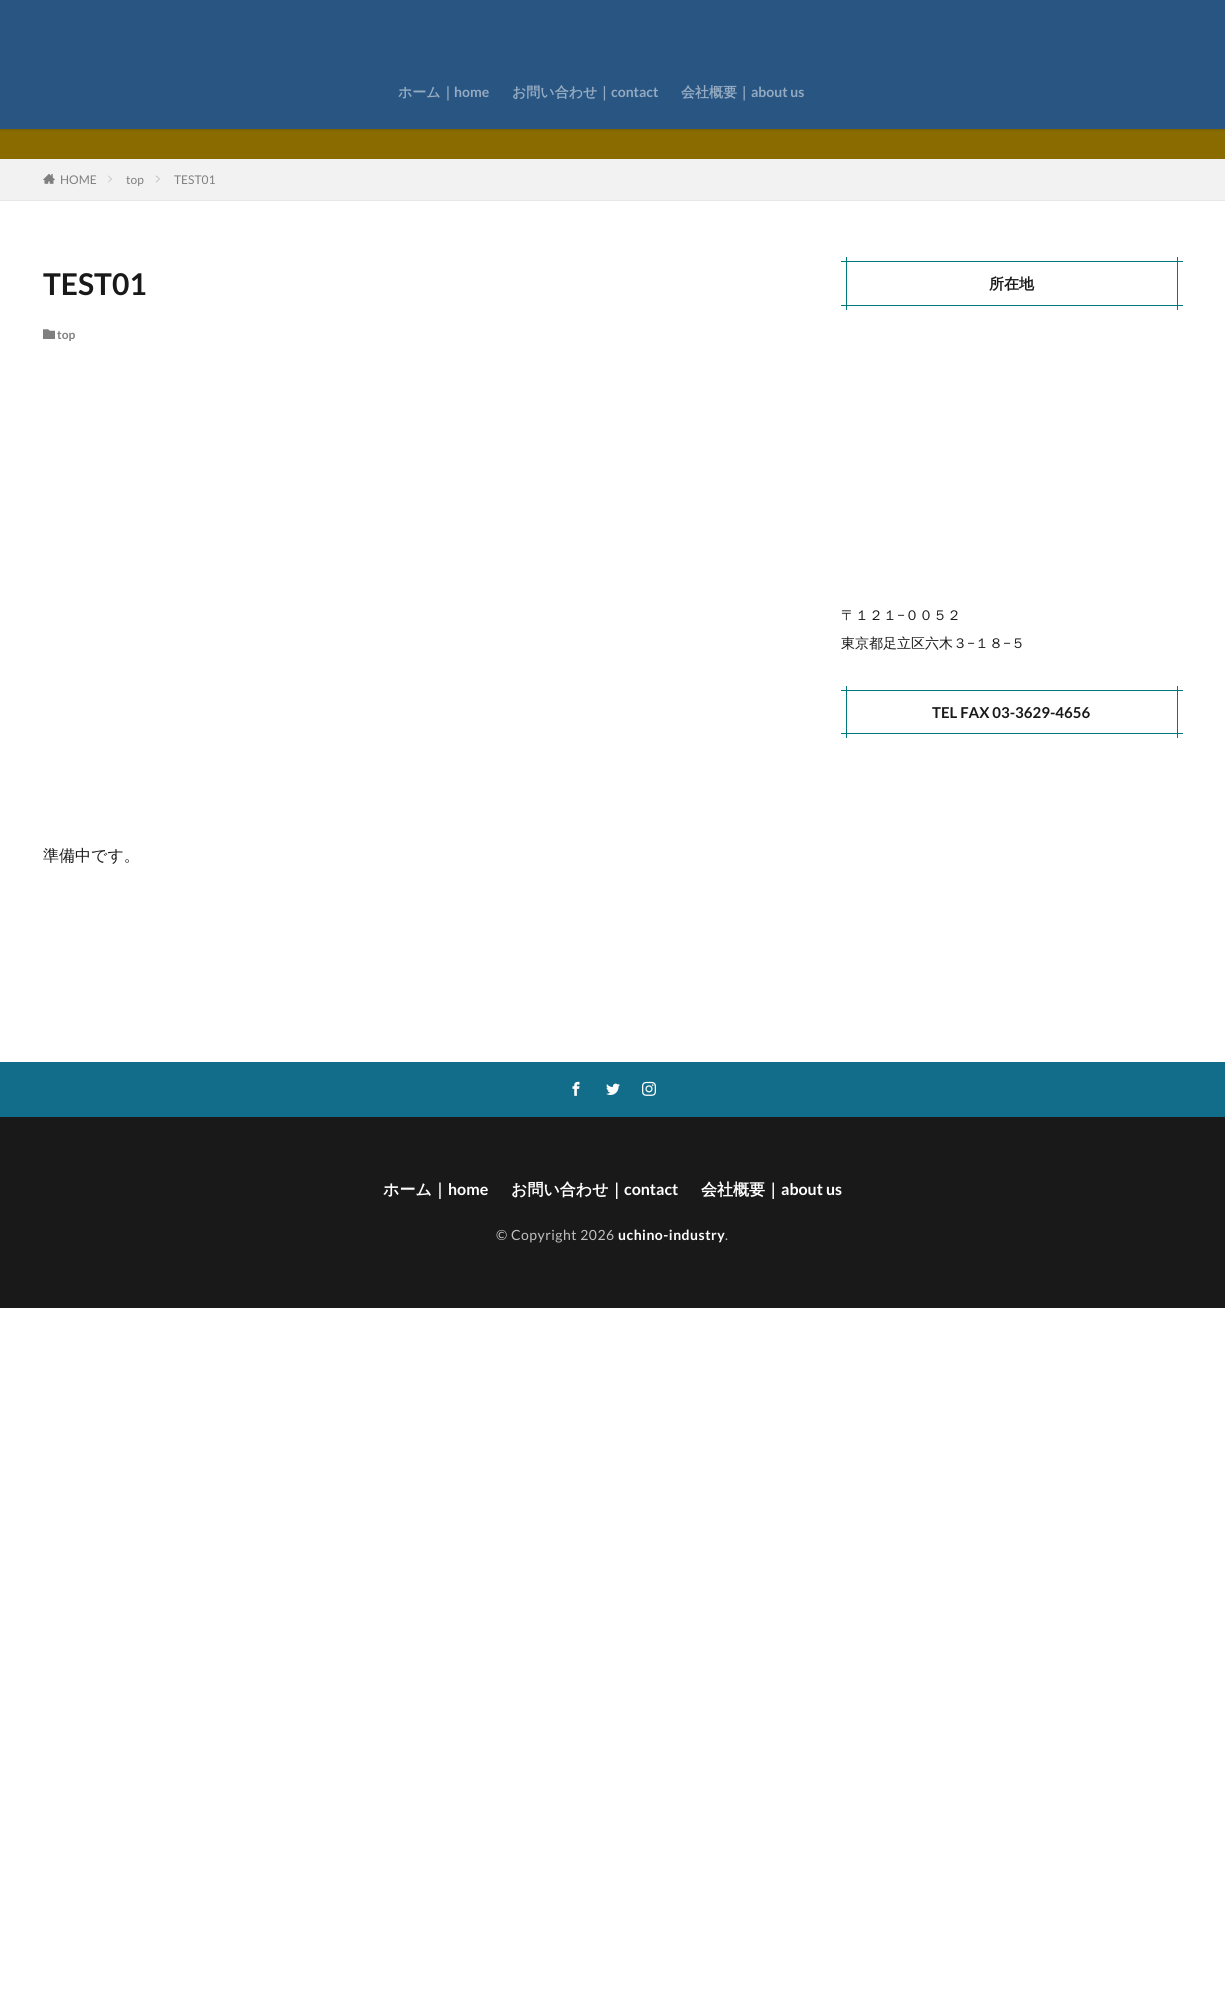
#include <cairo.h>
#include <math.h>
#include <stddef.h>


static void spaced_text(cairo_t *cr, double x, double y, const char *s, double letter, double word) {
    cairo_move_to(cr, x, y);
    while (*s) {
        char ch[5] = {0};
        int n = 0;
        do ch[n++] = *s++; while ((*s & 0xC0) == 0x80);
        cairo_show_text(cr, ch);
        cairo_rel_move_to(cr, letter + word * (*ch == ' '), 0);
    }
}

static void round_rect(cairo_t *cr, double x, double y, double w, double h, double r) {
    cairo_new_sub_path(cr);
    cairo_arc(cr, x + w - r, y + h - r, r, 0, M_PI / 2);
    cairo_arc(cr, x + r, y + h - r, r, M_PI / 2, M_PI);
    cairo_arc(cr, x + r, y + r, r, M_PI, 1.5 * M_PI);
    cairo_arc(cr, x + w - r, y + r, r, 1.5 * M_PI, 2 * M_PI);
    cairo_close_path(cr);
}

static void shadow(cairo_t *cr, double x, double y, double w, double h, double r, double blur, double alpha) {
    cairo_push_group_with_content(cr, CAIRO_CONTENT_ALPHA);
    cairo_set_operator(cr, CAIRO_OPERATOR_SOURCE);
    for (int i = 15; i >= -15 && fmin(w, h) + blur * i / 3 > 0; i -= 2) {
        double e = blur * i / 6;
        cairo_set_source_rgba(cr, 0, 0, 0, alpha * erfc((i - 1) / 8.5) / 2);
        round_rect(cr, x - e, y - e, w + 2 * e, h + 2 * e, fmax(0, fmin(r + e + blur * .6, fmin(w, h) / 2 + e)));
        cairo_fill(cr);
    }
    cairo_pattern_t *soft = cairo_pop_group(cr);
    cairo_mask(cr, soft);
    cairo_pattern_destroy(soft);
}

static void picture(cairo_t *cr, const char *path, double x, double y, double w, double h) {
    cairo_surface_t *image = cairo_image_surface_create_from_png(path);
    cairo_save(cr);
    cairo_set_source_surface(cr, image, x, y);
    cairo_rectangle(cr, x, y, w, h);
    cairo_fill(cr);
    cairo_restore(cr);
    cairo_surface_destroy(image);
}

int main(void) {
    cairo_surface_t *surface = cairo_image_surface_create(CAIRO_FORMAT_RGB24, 1225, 2015);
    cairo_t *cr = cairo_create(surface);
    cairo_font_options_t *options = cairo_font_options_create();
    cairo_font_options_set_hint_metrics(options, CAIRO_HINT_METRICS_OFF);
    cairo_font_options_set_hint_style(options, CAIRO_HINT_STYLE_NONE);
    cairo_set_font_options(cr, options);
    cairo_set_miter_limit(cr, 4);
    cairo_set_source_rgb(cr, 1, 1, 1);
    cairo_paint(cr);
    cairo_set_source_rgb(cr, 0.537, 0.42, 0);
    cairo_rectangle(cr, 0, 129, 1225, 30);
    cairo_fill(cr);
    cairo_set_source_rgb(cr, 0, 0, 0);
    shadow(cr, 0, 1, 1225, 129, 0, 1, 0.15);
    cairo_set_source_rgb(cr, 0.157, 0.333, 0.51);
    cairo_rectangle(cr, 0, 0, 1225, 129);
    cairo_fill(cr);
    cairo_select_font_face(cr, "WenQuanYi Zen Hei", CAIRO_FONT_SLANT_NORMAL, CAIRO_FONT_WEIGHT_BOLD);
    cairo_set_font_size(cr, 14);
    cairo_set_source_rgb(cr, 0.58, 0.667, 0.757);
    cairo_move_to(cr, 398, 97);
    cairo_show_text(cr, "ホーム｜");
    cairo_select_font_face(cr, "Lato", CAIRO_FONT_SLANT_NORMAL, CAIRO_FONT_WEIGHT_BOLD);
    cairo_move_to(cr, 454, 97);
    cairo_show_text(cr, "home");
    cairo_select_font_face(cr, "WenQuanYi Zen Hei", CAIRO_FONT_SLANT_NORMAL, CAIRO_FONT_WEIGHT_BOLD);
    cairo_move_to(cr, 512, 97);
    cairo_show_text(cr, "お問い合わせ｜");
    cairo_select_font_face(cr, "Lato", CAIRO_FONT_SLANT_NORMAL, CAIRO_FONT_WEIGHT_BOLD);
    cairo_move_to(cr, 611, 97);
    cairo_show_text(cr, "contact");
    cairo_select_font_face(cr, "WenQuanYi Zen Hei", CAIRO_FONT_SLANT_NORMAL, CAIRO_FONT_WEIGHT_BOLD);
    cairo_move_to(cr, 681, 97);
    cairo_show_text(cr, "会社概要｜");
    cairo_select_font_face(cr, "Lato", CAIRO_FONT_SLANT_NORMAL, CAIRO_FONT_WEIGHT_BOLD);
    cairo_move_to(cr, 751, 97);
    cairo_show_text(cr, "about us");
    cairo_set_source_rgb(cr, 0.949, 0.949, 0.949);
    cairo_rectangle(cr, 0, 159, 1225, 41);
    cairo_fill(cr);
    cairo_set_source_rgb(cr, 0.902, 0.902, 0.902);
    cairo_rectangle(cr, 0, 200, 1225, 1);
    cairo_fill(cr);
    picture(cr, "img1.png", 43, 173, 12, 11);
    cairo_select_font_face(cr, "Lato", CAIRO_FONT_SLANT_NORMAL, CAIRO_FONT_WEIGHT_NORMAL);
    cairo_set_font_size(cr, 12);
    cairo_set_source_rgb(cr, 0.498, 0.498, 0.498);
    cairo_move_to(cr, 60, 184);
    cairo_show_text(cr, "HOME");
    cairo_set_source_rgb(cr, 0.749, 0.749, 0.749);
    cairo_new_path(cr);
    cairo_move_to(cr, 108.5, 175.5);
    cairo_line_to(cr, 112, 179);
    cairo_line_to(cr, 111.5, 179.5);
    cairo_line_to(cr, 108, 176);
    cairo_close_path(cr);
    cairo_fill(cr);
    cairo_new_path(cr);
    cairo_move_to(cr, 111.5, 178.5);
    cairo_line_to(cr, 112, 179);
    cairo_line_to(cr, 108.5, 182.5);
    cairo_line_to(cr, 108, 182);
    cairo_close_path(cr);
    cairo_fill(cr);
    cairo_set_source_rgb(cr, 0.498, 0.498, 0.498);
    cairo_move_to(cr, 126, 184);
    cairo_show_text(cr, "top");
    cairo_set_source_rgb(cr, 0.749, 0.749, 0.749);
    cairo_new_path(cr);
    cairo_move_to(cr, 156.5, 175.5);
    cairo_line_to(cr, 160, 179);
    cairo_line_to(cr, 159.5, 179.5);
    cairo_line_to(cr, 155.5, 176);
    cairo_close_path(cr);
    cairo_fill(cr);
    cairo_new_path(cr);
    cairo_move_to(cr, 159.5, 178.5);
    cairo_line_to(cr, 160, 179);
    cairo_line_to(cr, 156.5, 182.5);
    cairo_line_to(cr, 155.5, 182);
    cairo_close_path(cr);
    cairo_fill(cr);
    cairo_set_source_rgb(cr, 0.498, 0.498, 0.498);
    cairo_move_to(cr, 174, 184);
    cairo_show_text(cr, "TEST01");
    cairo_select_font_face(cr, "Lato", CAIRO_FONT_SLANT_NORMAL, CAIRO_FONT_WEIGHT_BOLD);
    cairo_set_font_size(cr, 30);
    cairo_set_source_rgb(cr, 0.098, 0.098, 0.098);
    cairo_move_to(cr, 43, 295);
    cairo_show_text(cr, "TEST01");
    picture(cr, "img2.png", 43, 329, 12, 10);
    cairo_set_font_size(cr, 12);
    cairo_set_source_rgb(cr, 0.498, 0.498, 0.498);
    cairo_move_to(cr, 57, 339);
    cairo_show_text(cr, "top");
    cairo_select_font_face(cr, "WenQuanYi Zen Hei Medium", CAIRO_FONT_SLANT_NORMAL, CAIRO_FONT_WEIGHT_NORMAL);
    cairo_set_font_size(cr, 16);
    cairo_set_source_rgb(cr, 0.098, 0.098, 0.098);
    cairo_move_to(cr, 43, 861);
    cairo_show_text(cr, "準備中です。");
    cairo_set_source_rgb(cr, 0, 0.471, 0.486);
    cairo_rectangle(cr, 841, 261, 342, 1);
    cairo_fill(cr);
    cairo_rectangle(cr, 841, 305, 342, 1);
    cairo_fill(cr);
    cairo_rectangle(cr, 846, 257, 1, 53);
    cairo_fill(cr);
    cairo_select_font_face(cr, "WenQuanYi Zen Hei", CAIRO_FONT_SLANT_NORMAL, CAIRO_FONT_WEIGHT_BOLD);
    cairo_set_font_size(cr, 15);
    cairo_set_source_rgb(cr, 0.098, 0.098, 0.098);
    cairo_move_to(cr, 989, 289);
    cairo_show_text(cr, "所在地");
    cairo_set_source_rgb(cr, 0, 0.471, 0.486);
    cairo_rectangle(cr, 1177, 257, 1, 53);
    cairo_fill(cr);
    cairo_select_font_face(cr, "WenQuanYi Zen Hei Medium", CAIRO_FONT_SLANT_NORMAL, CAIRO_FONT_WEIGHT_NORMAL);
    cairo_set_font_size(cr, 14);
    cairo_set_source_rgb(cr, 0.098, 0.098, 0.098);
    cairo_move_to(cr, 841, 620);
    cairo_show_text(cr, "〒１２１");
    cairo_select_font_face(cr, "Lato", CAIRO_FONT_SLANT_NORMAL, CAIRO_FONT_WEIGHT_NORMAL);
    cairo_move_to(cr, 897, 620);
    cairo_show_text(cr, "−");
    cairo_select_font_face(cr, "WenQuanYi Zen Hei Medium", CAIRO_FONT_SLANT_NORMAL, CAIRO_FONT_WEIGHT_NORMAL);
    cairo_move_to(cr, 905, 620);
    cairo_show_text(cr, "００５２");
    cairo_move_to(cr, 841, 648);
    cairo_show_text(cr, "東京都足立区六木３");
    cairo_select_font_face(cr, "Lato", CAIRO_FONT_SLANT_NORMAL, CAIRO_FONT_WEIGHT_NORMAL);
    cairo_move_to(cr, 967, 648);
    cairo_show_text(cr, "−");
    cairo_select_font_face(cr, "WenQuanYi Zen Hei Medium", CAIRO_FONT_SLANT_NORMAL, CAIRO_FONT_WEIGHT_NORMAL);
    cairo_move_to(cr, 975, 648);
    cairo_show_text(cr, "１８");
    cairo_select_font_face(cr, "Lato", CAIRO_FONT_SLANT_NORMAL, CAIRO_FONT_WEIGHT_NORMAL);
    cairo_move_to(cr, 1003, 648);
    cairo_show_text(cr, "−");
    cairo_select_font_face(cr, "WenQuanYi Zen Hei Medium", CAIRO_FONT_SLANT_NORMAL, CAIRO_FONT_WEIGHT_NORMAL);
    cairo_move_to(cr, 1011, 648);
    cairo_show_text(cr, "５");
    cairo_set_source_rgb(cr, 0, 0.471, 0.486);
    cairo_rectangle(cr, 841, 690, 342, 1);
    cairo_fill(cr);
    cairo_rectangle(cr, 841, 733, 342, 1);
    cairo_fill(cr);
    cairo_rectangle(cr, 846, 686, 1, 52);
    cairo_fill(cr);
    cairo_select_font_face(cr, "Lato", CAIRO_FONT_SLANT_NORMAL, CAIRO_FONT_WEIGHT_BOLD);
    cairo_set_font_size(cr, 15);
    cairo_set_source_rgb(cr, 0.098, 0.098, 0.098);
    cairo_move_to(cr, 932, 718);
    cairo_show_text(cr, "TEL FAX 03-3629-4656");
    cairo_set_source_rgb(cr, 0, 0.471, 0.486);
    cairo_rectangle(cr, 1177, 686, 1, 52);
    cairo_fill(cr);
    cairo_set_source_rgb(cr, 0.067, 0.427, 0.537);
    cairo_rectangle(cr, 0, 1062, 1225, 55);
    cairo_fill(cr);
    picture(cr, "img3.png", 572, 1081, 8, 15);
    picture(cr, "img4.png", 606, 1083, 14, 12);
    picture(cr, "img5.png", 642, 1081, 14, 15);
    cairo_set_source_rgb(cr, 0.098, 0.098, 0.098);
    cairo_rectangle(cr, 0, 1117, 1225, 191);
    cairo_fill(cr);
    cairo_select_font_face(cr, "WenQuanYi Zen Hei", CAIRO_FONT_SLANT_NORMAL, CAIRO_FONT_WEIGHT_BOLD);
    cairo_set_font_size(cr, 16);
    cairo_set_source_rgb(cr, 1, 1, 1);
    cairo_move_to(cr, 383, 1195);
    cairo_show_text(cr, "ホーム｜");
    cairo_select_font_face(cr, "Lato", CAIRO_FONT_SLANT_NORMAL, CAIRO_FONT_WEIGHT_BOLD);
    cairo_move_to(cr, 448, 1195);
    cairo_show_text(cr, "home");
    cairo_select_font_face(cr, "WenQuanYi Zen Hei", CAIRO_FONT_SLANT_NORMAL, CAIRO_FONT_WEIGHT_BOLD);
    cairo_move_to(cr, 511, 1195);
    cairo_show_text(cr, "お問い合わせ｜");
    cairo_select_font_face(cr, "Lato", CAIRO_FONT_SLANT_NORMAL, CAIRO_FONT_WEIGHT_BOLD);
    cairo_move_to(cr, 624, 1195);
    cairo_show_text(cr, "contact");
    cairo_select_font_face(cr, "WenQuanYi Zen Hei", CAIRO_FONT_SLANT_NORMAL, CAIRO_FONT_WEIGHT_BOLD);
    cairo_move_to(cr, 701, 1195);
    cairo_show_text(cr, "会社概要｜");
    cairo_select_font_face(cr, "Lato", CAIRO_FONT_SLANT_NORMAL, CAIRO_FONT_WEIGHT_BOLD);
    cairo_move_to(cr, 781, 1195);
    cairo_show_text(cr, "about us");
    cairo_select_font_face(cr, "Lato", CAIRO_FONT_SLANT_NORMAL, CAIRO_FONT_WEIGHT_NORMAL);
    cairo_set_font_size(cr, 14);
    cairo_set_source_rgb(cr, 0.749, 0.749, 0.749);
    spaced_text(cr, 496, 1240, "© Copyright 2026", 0.5, 0);
    cairo_select_font_face(cr, "Lato", CAIRO_FONT_SLANT_NORMAL, CAIRO_FONT_WEIGHT_BOLD);
    cairo_set_source_rgb(cr, 1, 1, 1);
    spaced_text(cr, 618, 1240, "uchino-industry", 0.5, 0);
    cairo_select_font_face(cr, "Lato", CAIRO_FONT_SLANT_NORMAL, CAIRO_FONT_WEIGHT_NORMAL);
    cairo_set_source_rgb(cr, 0.749, 0.749, 0.749);
    spaced_text(cr, 725, 1240, ".", 0.5, 0);
    cairo_surface_write_to_png(surface, "page.png");
    cairo_font_options_destroy(options);
    cairo_destroy(cr);
    cairo_surface_destroy(surface);
    return 0;
}
